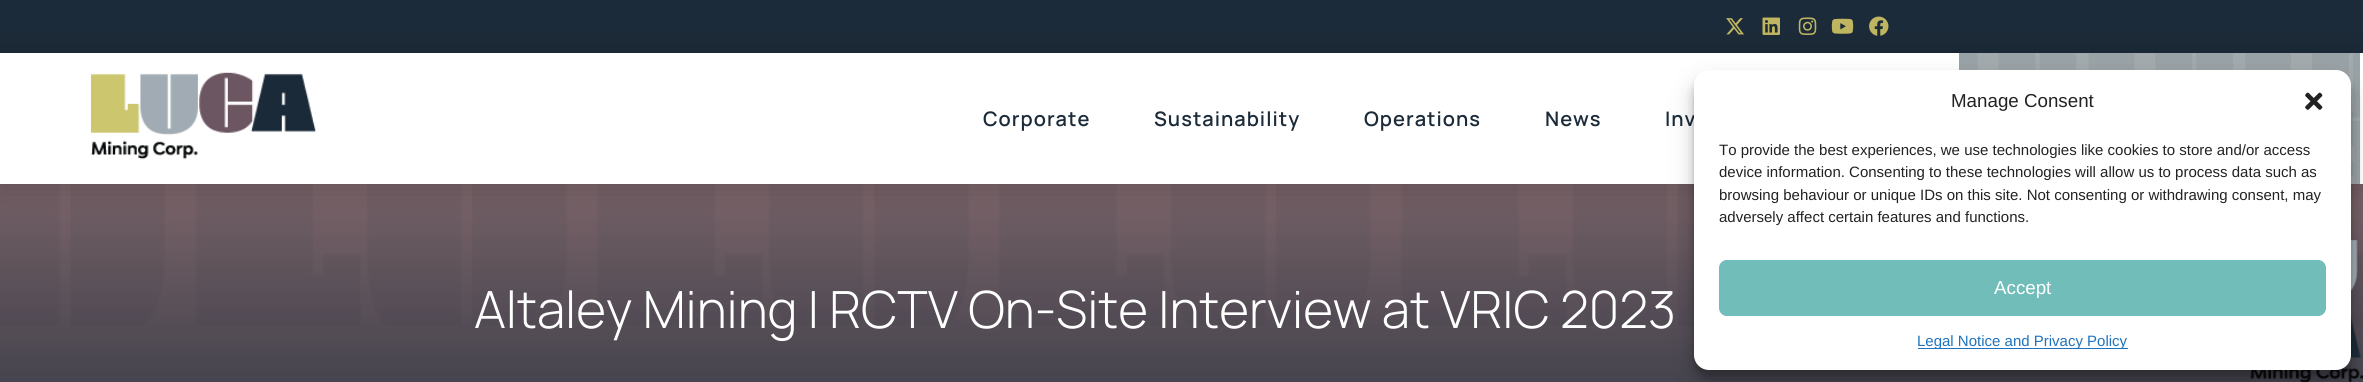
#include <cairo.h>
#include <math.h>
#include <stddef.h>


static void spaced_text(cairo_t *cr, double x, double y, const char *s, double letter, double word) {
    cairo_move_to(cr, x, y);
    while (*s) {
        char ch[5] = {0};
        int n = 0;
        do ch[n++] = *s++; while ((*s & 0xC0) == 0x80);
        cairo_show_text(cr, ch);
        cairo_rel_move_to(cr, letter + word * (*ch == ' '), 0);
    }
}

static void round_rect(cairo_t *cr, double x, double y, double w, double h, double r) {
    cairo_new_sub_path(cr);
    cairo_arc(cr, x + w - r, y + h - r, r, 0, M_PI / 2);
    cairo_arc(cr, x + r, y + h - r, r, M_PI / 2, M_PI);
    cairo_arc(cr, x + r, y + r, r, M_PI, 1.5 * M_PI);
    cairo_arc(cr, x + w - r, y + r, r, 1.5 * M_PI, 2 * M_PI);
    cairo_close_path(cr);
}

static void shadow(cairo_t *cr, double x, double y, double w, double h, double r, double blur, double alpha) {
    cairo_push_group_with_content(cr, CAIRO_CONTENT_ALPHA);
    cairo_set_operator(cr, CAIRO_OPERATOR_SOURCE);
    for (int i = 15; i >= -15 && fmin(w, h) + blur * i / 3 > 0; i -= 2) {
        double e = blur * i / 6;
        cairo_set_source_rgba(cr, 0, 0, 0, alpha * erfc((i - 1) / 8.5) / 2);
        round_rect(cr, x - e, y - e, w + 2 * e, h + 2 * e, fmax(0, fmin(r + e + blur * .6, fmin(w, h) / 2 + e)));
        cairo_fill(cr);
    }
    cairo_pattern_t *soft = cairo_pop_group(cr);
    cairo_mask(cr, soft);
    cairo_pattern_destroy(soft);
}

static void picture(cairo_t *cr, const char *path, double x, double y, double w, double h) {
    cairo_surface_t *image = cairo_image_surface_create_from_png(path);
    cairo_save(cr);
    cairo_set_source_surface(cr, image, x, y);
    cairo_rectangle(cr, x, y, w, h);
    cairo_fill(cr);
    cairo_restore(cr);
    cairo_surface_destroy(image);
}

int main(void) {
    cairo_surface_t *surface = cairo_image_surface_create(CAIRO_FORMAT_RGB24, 2363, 382);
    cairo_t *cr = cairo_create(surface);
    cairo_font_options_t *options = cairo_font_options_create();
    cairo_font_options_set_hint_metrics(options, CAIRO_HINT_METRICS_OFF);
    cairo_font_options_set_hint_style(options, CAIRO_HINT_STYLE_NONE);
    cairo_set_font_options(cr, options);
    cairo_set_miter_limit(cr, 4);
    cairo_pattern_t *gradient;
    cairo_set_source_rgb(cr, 1, 1, 1);
    cairo_paint(cr);
    cairo_set_source_rgb(cr, 0.11, 0.169, 0.224);
    cairo_rectangle(cr, 0, 0, 2363, 53);
    cairo_fill(cr);
    picture(cr, "img1.png", 1726, 18, 18, 17);
    picture(cr, "img2.png", 1762, 17, 18, 18);
    picture(cr, "img3.png", 1798, 17, 19, 18);
    picture(cr, "img4.png", 1831, 18, 23, 16);
    picture(cr, "img5.png", 1869, 16, 20, 20);
    gradient = cairo_pattern_create_linear(1182, 184, 1182, 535);
    cairo_pattern_add_color_stop_rgba(gradient, 0, 0.482, 0.392, 0.412, 1);
    cairo_pattern_add_color_stop_rgba(gradient, 1, 0.11, 0.169, 0.224, 1);
    cairo_set_source(cr, gradient);
    cairo_pattern_destroy(gradient);
    cairo_rectangle(cr, 0, 184, 2363, 198);
    cairo_fill(cr);
    picture(cr, "img8.png", 0, 184, 2363, 142);
    cairo_set_source_rgb(cr, 0, 0, 0);
    shadow(cr, 0, 56, 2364, 132, 0, 15, 0.18);
    cairo_set_source_rgb(cr, 1, 1, 1);
    cairo_rectangle(cr, 0, 53, 2363, 131);
    cairo_fill(cr);
    picture(cr, "img6.png", 90, 72, 226, 88);
    cairo_select_font_face(cr, "Manrope SemiBold", CAIRO_FONT_SLANT_NORMAL, CAIRO_FONT_WEIGHT_NORMAL);
    cairo_set_font_size(cr, 20);
    cairo_set_source_rgb(cr, 0.11, 0.169, 0.224);
    spaced_text(cr, 983, 126, "Corporate", 1, 0);
    spaced_text(cr, 1154, 126, "Sustainability", 1, 0);
    spaced_text(cr, 1364, 126, "Operations", 1, 0);
    spaced_text(cr, 1545, 126, "News", 1, 0);
    spaced_text(cr, 1665, 126, "Inv", 1, 0);
    cairo_set_source_rgb(cr, 0.635, 0.667, 0.678);
    cairo_rectangle(cr, 1959, 53, 401, 131);
    cairo_fill(cr);
    picture(cr, "img7.png", 1959, 53, 401, 131);
    cairo_select_font_face(cr, "Manrope Light", CAIRO_FONT_SLANT_NORMAL, CAIRO_FONT_WEIGHT_NORMAL);
    cairo_set_font_size(cr, 51.25);
    cairo_set_source_rgb(cr, 1, 1, 1);
    cairo_move_to(cr, 474, 328);
    cairo_show_text(cr, "Altaley Mining I RCTV On-Site Interview at VRIC 2023");
    picture(cr, "img9.png", 2250, 240, 113, 142);
    cairo_set_source_rgb(cr, 0, 0, 0);
    shadow(cr, 1694, 78, 657, 300, 15, 4, 0.23);
    shadow(cr, 1694, 83, 657, 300, 15, 12.5, 0.19);
    cairo_set_source_rgb(cr, 1, 1, 1);
    round_rect(cr, 1694, 70, 657, 300, 15);
    cairo_fill(cr);
    cairo_select_font_face(cr, "Liberation Sans", CAIRO_FONT_SLANT_NORMAL, CAIRO_FONT_WEIGHT_NORMAL);
    cairo_set_font_size(cr, 18.75);
    cairo_set_source_rgb(cr, 0.133, 0.133, 0.133);
    cairo_move_to(cr, 1951, 107);
    cairo_show_text(cr, "Manage Consent");
    picture(cr, "img10.png", 2305, 92, 18, 18);
    cairo_set_font_size(cr, 15);
    cairo_move_to(cr, 1719, 155);
    cairo_show_text(cr, "To provide the best experiences, we use technologies like cookies to store and/or access");
    cairo_move_to(cr, 1719, 177);
    cairo_show_text(cr, "device information. Consenting to these technologies will allow us to process data such as");
    cairo_move_to(cr, 1719, 200);
    cairo_show_text(cr, "browsing behaviour or unique IDs on this site. Not consenting or withdrawing consent, may");
    cairo_move_to(cr, 1719, 222);
    cairo_show_text(cr, "adversely affect certain features and functions.");
    cairo_set_source_rgb(cr, 0.439, 0.741, 0.725);
    round_rect(cr, 1719.5, 260.5, 606, 55, 7.5);
    cairo_fill_preserve(cr);
    cairo_set_line_width(cr, 1);
    cairo_stroke(cr);
    cairo_set_font_size(cr, 18.75);
    cairo_set_source_rgb(cr, 1, 1, 1);
    cairo_move_to(cr, 1994, 294);
    cairo_show_text(cr, "Accept");
    cairo_set_source_rgb(cr, 0.118, 0.451, 0.745);
    cairo_rectangle(cr, 1918, 348, 210, 1);
    cairo_fill(cr);
    cairo_set_font_size(cr, 15);
    cairo_move_to(cr, 1917, 346);
    cairo_show_text(cr, "Legal Notice and Privacy Policy");
    cairo_surface_write_to_png(surface, "page.png");
    cairo_font_options_destroy(options);
    cairo_destroy(cr);
    cairo_surface_destroy(surface);
    return 0;
}
